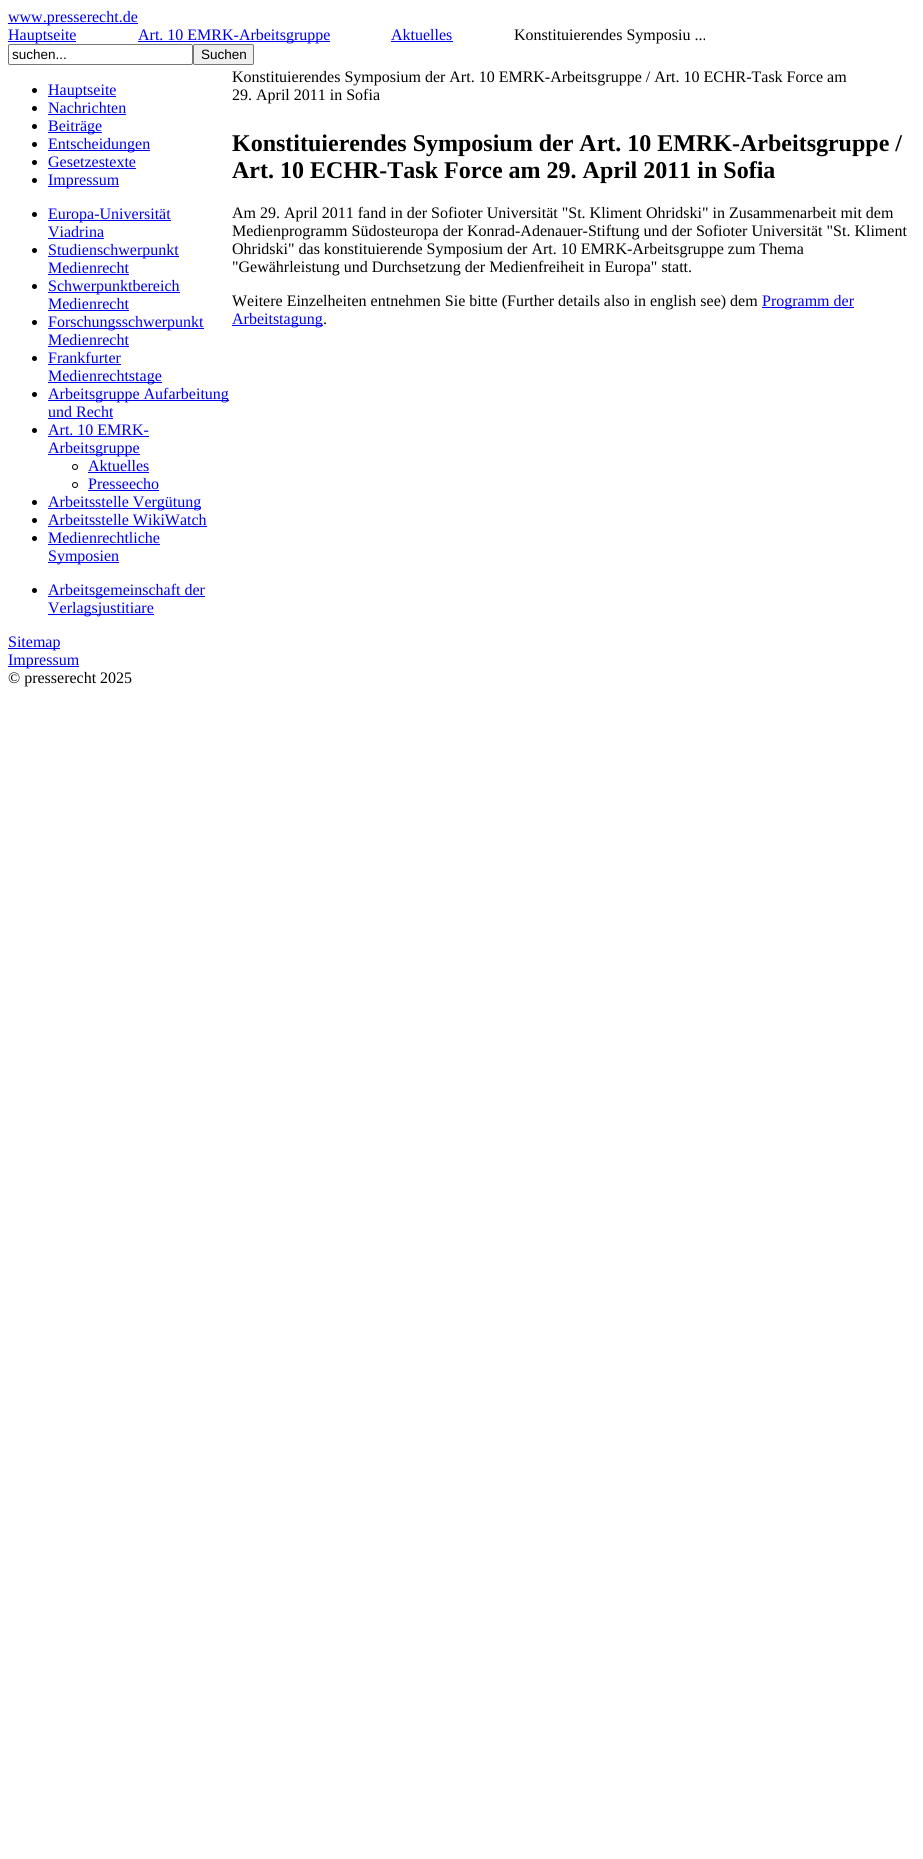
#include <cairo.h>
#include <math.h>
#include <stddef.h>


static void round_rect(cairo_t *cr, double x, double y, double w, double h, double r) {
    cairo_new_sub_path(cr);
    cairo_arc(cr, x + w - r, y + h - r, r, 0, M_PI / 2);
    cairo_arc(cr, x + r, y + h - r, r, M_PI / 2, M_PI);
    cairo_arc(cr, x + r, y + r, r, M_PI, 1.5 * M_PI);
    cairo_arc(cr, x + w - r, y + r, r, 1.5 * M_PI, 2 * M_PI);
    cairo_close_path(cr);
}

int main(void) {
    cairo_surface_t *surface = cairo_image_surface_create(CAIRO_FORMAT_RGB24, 923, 1859);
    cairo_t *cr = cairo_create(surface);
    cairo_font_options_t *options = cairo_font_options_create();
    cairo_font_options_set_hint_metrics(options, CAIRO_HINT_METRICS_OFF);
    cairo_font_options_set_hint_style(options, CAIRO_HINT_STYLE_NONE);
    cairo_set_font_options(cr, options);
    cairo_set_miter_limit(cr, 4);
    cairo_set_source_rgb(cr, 1, 1, 1);
    cairo_paint(cr);
    cairo_set_source_rgb(cr, 0, 0, 0.933);
    cairo_rectangle(cr, 8, 23, 130, 1);
    cairo_fill(cr);
    cairo_select_font_face(cr, "Liberation Serif", CAIRO_FONT_SLANT_NORMAL, CAIRO_FONT_WEIGHT_NORMAL);
    cairo_set_font_size(cr, 16);
    cairo_move_to(cr, 8, 22);
    cairo_show_text(cr, "www.presserecht.de");
    cairo_rectangle(cr, 8, 41, 68, 1);
    cairo_fill(cr);
    cairo_move_to(cr, 8, 40);
    cairo_show_text(cr, "Hauptseite");
    cairo_rectangle(cr, 138, 41, 192, 1);
    cairo_fill(cr);
    cairo_move_to(cr, 138, 40);
    cairo_show_text(cr, "Art. 10 EMRK-Arbeitsgruppe");
    cairo_move_to(cr, 391, 40);
    cairo_show_text(cr, "Aktuelles");
    cairo_rectangle(cr, 391, 41, 62, 1);
    cairo_fill(cr);
    cairo_set_source_rgb(cr, 0, 0, 0);
    cairo_move_to(cr, 514, 40);
    cairo_show_text(cr, "Konstituierendes Symposiu ...");
    round_rect(cr, 8.5, 44.5, 184, 20, 1.5);
    cairo_set_source_rgb(cr, 0.463, 0.463, 0.463);
    cairo_set_line_width(cr, 1);
    cairo_stroke(cr);
    cairo_select_font_face(cr, "Liberation Sans", CAIRO_FONT_SLANT_NORMAL, CAIRO_FONT_WEIGHT_NORMAL);
    cairo_set_font_size(cr, 13.5);
    cairo_set_source_rgb(cr, 0, 0, 0);
    cairo_move_to(cr, 12, 59);
    cairo_show_text(cr, "suchen...");
    cairo_set_source_rgb(cr, 0.937, 0.937, 0.937);
    round_rect(cr, 193.5, 44.5, 60, 20, 1.5);
    cairo_fill_preserve(cr);
    cairo_set_source_rgb(cr, 0.463, 0.463, 0.463);
    cairo_stroke(cr);
    cairo_set_source_rgb(cr, 0, 0, 0);
    cairo_move_to(cr, 201, 59);
    cairo_show_text(cr, "Suchen");
    cairo_new_path(cr);
    cairo_arc(cr, 34.5, 90.5, 2.5, 0, 2 * M_PI);
    cairo_fill(cr);
    cairo_set_source_rgb(cr, 0, 0, 0.933);
    cairo_rectangle(cr, 48, 96, 68, 1);
    cairo_fill(cr);
    cairo_select_font_face(cr, "Liberation Serif", CAIRO_FONT_SLANT_NORMAL, CAIRO_FONT_WEIGHT_NORMAL);
    cairo_set_font_size(cr, 16);
    cairo_move_to(cr, 48, 95);
    cairo_show_text(cr, "Hauptseite");
    cairo_set_source_rgb(cr, 0, 0, 0);
    cairo_new_path(cr);
    cairo_arc(cr, 34.5, 108.5, 2.5, 0, 2 * M_PI);
    cairo_fill(cr);
    cairo_set_source_rgb(cr, 0, 0, 0.933);
    cairo_move_to(cr, 48, 113);
    cairo_show_text(cr, "Nachrichten");
    cairo_rectangle(cr, 48, 114, 78, 1);
    cairo_fill(cr);
    cairo_set_source_rgb(cr, 0, 0, 0);
    cairo_arc(cr, 34.5, 126.5, 2.5, 0, 2 * M_PI);
    cairo_fill(cr);
    cairo_set_source_rgb(cr, 0, 0, 0.933);
    cairo_rectangle(cr, 48, 132, 54, 1);
    cairo_fill(cr);
    cairo_move_to(cr, 48, 131);
    cairo_show_text(cr, "Beiträge");
    cairo_set_source_rgb(cr, 0, 0, 0);
    cairo_new_path(cr);
    cairo_arc(cr, 34.5, 144.5, 2.5, 0, 2 * M_PI);
    cairo_fill(cr);
    cairo_set_source_rgb(cr, 0, 0, 0.933);
    cairo_rectangle(cr, 48, 150, 102, 1);
    cairo_fill(cr);
    cairo_move_to(cr, 48, 149);
    cairo_show_text(cr, "Entscheidungen");
    cairo_set_source_rgb(cr, 0, 0, 0);
    cairo_new_path(cr);
    cairo_arc(cr, 34.5, 162.5, 2.5, 0, 2 * M_PI);
    cairo_fill(cr);
    cairo_set_source_rgb(cr, 0, 0, 0.933);
    cairo_move_to(cr, 48, 167);
    cairo_show_text(cr, "Gesetzestexte");
    cairo_rectangle(cr, 48, 168, 88, 1);
    cairo_fill(cr);
    cairo_set_source_rgb(cr, 0, 0, 0);
    cairo_arc(cr, 34.5, 180.5, 2.5, 0, 2 * M_PI);
    cairo_fill(cr);
    cairo_set_source_rgb(cr, 0, 0, 0.933);
    cairo_rectangle(cr, 48, 186, 71, 1);
    cairo_fill(cr);
    cairo_move_to(cr, 48, 185);
    cairo_show_text(cr, "Impressum");
    cairo_set_source_rgb(cr, 0, 0, 0);
    cairo_new_path(cr);
    cairo_arc(cr, 34.5, 214.5, 2.5, 0, 2 * M_PI);
    cairo_fill(cr);
    cairo_set_source_rgb(cr, 0, 0, 0.933);
    cairo_rectangle(cr, 48, 220, 123, 1);
    cairo_fill(cr);
    cairo_move_to(cr, 48, 219);
    cairo_show_text(cr, "Europa-Universität");
    cairo_move_to(cr, 48, 237);
    cairo_show_text(cr, "Viadrina");
    cairo_rectangle(cr, 48, 238, 56, 1);
    cairo_fill(cr);
    cairo_set_source_rgb(cr, 0, 0, 0);
    cairo_arc(cr, 34.5, 250.5, 2.5, 0, 2 * M_PI);
    cairo_fill(cr);
    cairo_set_source_rgb(cr, 0, 0, 0.933);
    cairo_rectangle(cr, 48, 256, 131, 1);
    cairo_fill(cr);
    cairo_move_to(cr, 48, 255);
    cairo_show_text(cr, "Studienschwerpunkt");
    cairo_move_to(cr, 48, 273);
    cairo_show_text(cr, "Medienrecht");
    cairo_rectangle(cr, 48, 274, 81, 1);
    cairo_fill(cr);
    cairo_set_source_rgb(cr, 0, 0, 0);
    cairo_arc(cr, 34.5, 286.5, 2.5, 0, 2 * M_PI);
    cairo_fill(cr);
    cairo_set_source_rgb(cr, 0, 0, 0.933);
    cairo_rectangle(cr, 48, 292, 132, 1);
    cairo_fill(cr);
    cairo_move_to(cr, 48, 291);
    cairo_show_text(cr, "Schwerpunktbereich");
    cairo_move_to(cr, 48, 309);
    cairo_show_text(cr, "Medienrecht");
    cairo_rectangle(cr, 48, 310, 81, 1);
    cairo_fill(cr);
    cairo_set_source_rgb(cr, 0, 0, 0);
    cairo_arc(cr, 34.5, 322.5, 2.5, 0, 2 * M_PI);
    cairo_fill(cr);
    cairo_set_source_rgb(cr, 0, 0, 0.933);
    cairo_rectangle(cr, 48, 328, 156, 1);
    cairo_fill(cr);
    cairo_move_to(cr, 48, 327);
    cairo_show_text(cr, "Forschungsschwerpunkt");
    cairo_move_to(cr, 48, 345);
    cairo_show_text(cr, "Medienrecht");
    cairo_rectangle(cr, 48, 346, 81, 1);
    cairo_fill(cr);
    cairo_set_source_rgb(cr, 0, 0, 0);
    cairo_arc(cr, 34.5, 358.5, 2.5, 0, 2 * M_PI);
    cairo_fill(cr);
    cairo_set_source_rgb(cr, 0, 0, 0.933);
    cairo_move_to(cr, 48, 363);
    cairo_show_text(cr, "Frankfurter");
    cairo_rectangle(cr, 48, 364, 73, 1);
    cairo_fill(cr);
    cairo_rectangle(cr, 48, 382, 114, 1);
    cairo_fill(cr);
    cairo_move_to(cr, 48, 381);
    cairo_show_text(cr, "Medienrechtstage");
    cairo_set_source_rgb(cr, 0, 0, 0);
    cairo_new_path(cr);
    cairo_arc(cr, 34.5, 394.5, 2.5, 0, 2 * M_PI);
    cairo_fill(cr);
    cairo_set_source_rgb(cr, 0, 0, 0.933);
    cairo_rectangle(cr, 48, 400, 181, 1);
    cairo_fill(cr);
    cairo_move_to(cr, 48, 399);
    cairo_show_text(cr, "Arbeitsgruppe Aufarbeitung");
    cairo_move_to(cr, 48, 417);
    cairo_show_text(cr, "und Recht");
    cairo_rectangle(cr, 48, 418, 65, 1);
    cairo_fill(cr);
    cairo_set_source_rgb(cr, 0, 0, 0);
    cairo_arc(cr, 34.5, 430.5, 2.5, 0, 2 * M_PI);
    cairo_fill(cr);
    cairo_set_source_rgb(cr, 0, 0, 0.933);
    cairo_move_to(cr, 48, 435);
    cairo_show_text(cr, "Art. 10 EMRK-");
    cairo_rectangle(cr, 48, 436, 101, 1);
    cairo_fill(cr);
    cairo_rectangle(cr, 48, 454, 92, 1);
    cairo_fill(cr);
    cairo_move_to(cr, 48, 453);
    cairo_show_text(cr, "Arbeitsgruppe");
    cairo_new_path(cr);
    cairo_arc(cr, 75, 467, 2.5, 0, 2 * M_PI);
    cairo_set_source_rgb(cr, 0, 0, 0);
    cairo_stroke(cr);
    cairo_set_source_rgb(cr, 0, 0, 0.933);
    cairo_move_to(cr, 88, 471);
    cairo_show_text(cr, "Aktuelles");
    cairo_rectangle(cr, 88, 472, 61, 1);
    cairo_fill(cr);
    cairo_arc(cr, 75, 485, 2.5, 0, 2 * M_PI);
    cairo_set_source_rgb(cr, 0, 0, 0);
    cairo_stroke(cr);
    cairo_set_source_rgb(cr, 0, 0, 0.933);
    cairo_move_to(cr, 88, 489);
    cairo_show_text(cr, "Presseecho");
    cairo_rectangle(cr, 88, 490, 71, 1);
    cairo_fill(cr);
    cairo_set_source_rgb(cr, 0, 0, 0);
    cairo_arc(cr, 34.5, 502.5, 2.5, 0, 2 * M_PI);
    cairo_fill(cr);
    cairo_set_source_rgb(cr, 0, 0, 0.933);
    cairo_rectangle(cr, 48, 508, 153, 1);
    cairo_fill(cr);
    cairo_move_to(cr, 48, 507);
    cairo_show_text(cr, "Arbeitsstelle Vergütung");
    cairo_set_source_rgb(cr, 0, 0, 0);
    cairo_new_path(cr);
    cairo_arc(cr, 34.5, 520.5, 2.5, 0, 2 * M_PI);
    cairo_fill(cr);
    cairo_set_source_rgb(cr, 0, 0, 0.933);
    cairo_move_to(cr, 48, 525);
    cairo_show_text(cr, "Arbeitsstelle WikiWatch");
    cairo_rectangle(cr, 48, 526, 159, 1);
    cairo_fill(cr);
    cairo_set_source_rgb(cr, 0, 0, 0);
    cairo_arc(cr, 34.5, 538.5, 2.5, 0, 2 * M_PI);
    cairo_fill(cr);
    cairo_set_source_rgb(cr, 0, 0, 0.933);
    cairo_move_to(cr, 48, 543);
    cairo_show_text(cr, "Medienrechtliche");
    cairo_rectangle(cr, 48, 544, 112, 1);
    cairo_fill(cr);
    cairo_rectangle(cr, 48, 562, 71, 1);
    cairo_fill(cr);
    cairo_move_to(cr, 48, 561);
    cairo_show_text(cr, "Symposien");
    cairo_set_source_rgb(cr, 0, 0, 0);
    cairo_new_path(cr);
    cairo_arc(cr, 34.5, 590.5, 2.5, 0, 2 * M_PI);
    cairo_fill(cr);
    cairo_set_source_rgb(cr, 0, 0, 0.933);
    cairo_rectangle(cr, 48, 596, 157, 1);
    cairo_fill(cr);
    cairo_move_to(cr, 48, 595);
    cairo_show_text(cr, "Arbeitsgemeinschaft der");
    cairo_rectangle(cr, 48, 614, 106, 1);
    cairo_fill(cr);
    cairo_move_to(cr, 48, 613);
    cairo_show_text(cr, "Verlagsjustitiare");
    cairo_set_source_rgb(cr, 0, 0, 0);
    cairo_move_to(cr, 232, 82);
    cairo_show_text(cr, "Konstituierendes Symposium der Art. 10 EMRK-Arbeitsgruppe / Art. 10 ECHR-Task Force am");
    cairo_move_to(cr, 232, 100);
    cairo_show_text(cr, "29. April 2011 in Sofia");
    cairo_select_font_face(cr, "Liberation Serif", CAIRO_FONT_SLANT_NORMAL, CAIRO_FONT_WEIGHT_BOLD);
    cairo_set_font_size(cr, 24);
    cairo_move_to(cr, 232, 151);
    cairo_show_text(cr, "Konstituierendes Symposium der Art. 10 EMRK-Arbeitsgruppe /");
    cairo_move_to(cr, 232, 178);
    cairo_show_text(cr, "Art. 10 ECHR-Task Force am 29. April 2011 in Sofia");
    cairo_select_font_face(cr, "Liberation Serif", CAIRO_FONT_SLANT_NORMAL, CAIRO_FONT_WEIGHT_NORMAL);
    cairo_set_font_size(cr, 16);
    cairo_move_to(cr, 232, 218);
    cairo_show_text(cr, "Am 29. April 2011 fand in der Sofioter Universität \"St. Kliment Ohridski\" in Zusammenarbeit mit dem");
    cairo_move_to(cr, 232, 236);
    cairo_show_text(cr, "Medienprogramm Südosteuropa der Konrad-Adenauer-Stiftung und der Sofioter Universität \"St. Kliment");
    cairo_move_to(cr, 232, 254);
    cairo_show_text(cr, "Ohridski\" das konstituierende Symposium der Art. 10 EMRK-Arbeitsgruppe zum Thema");
    cairo_move_to(cr, 232, 272);
    cairo_show_text(cr, "\"Gewährleistung und Durchsetzung der Medienfreiheit in Europa\" statt.");
    cairo_move_to(cr, 232, 306);
    cairo_show_text(cr, "Weitere Einzelheiten entnehmen Sie bitte (Further details also in english see) dem");
    cairo_set_source_rgb(cr, 0, 0, 0.933);
    cairo_rectangle(cr, 762, 307, 92, 1);
    cairo_fill(cr);
    cairo_move_to(cr, 762, 306);
    cairo_show_text(cr, "Programm der");
    cairo_rectangle(cr, 232, 325, 91, 1);
    cairo_fill(cr);
    cairo_move_to(cr, 232, 324);
    cairo_show_text(cr, "Arbeitstagung");
    cairo_set_source_rgb(cr, 0, 0, 0);
    cairo_move_to(cr, 323, 324);
    cairo_show_text(cr, ".");
    cairo_set_source_rgb(cr, 0, 0, 0.933);
    cairo_rectangle(cr, 8, 648, 52, 1);
    cairo_fill(cr);
    cairo_move_to(cr, 8, 647);
    cairo_show_text(cr, "Sitemap");
    cairo_rectangle(cr, 8, 666, 71, 1);
    cairo_fill(cr);
    cairo_move_to(cr, 8, 665);
    cairo_show_text(cr, "Impressum");
    cairo_set_source_rgb(cr, 0, 0, 0);
    cairo_move_to(cr, 8, 683);
    cairo_show_text(cr, "© presserecht 2025");
    cairo_surface_write_to_png(surface, "page.png");
    cairo_font_options_destroy(options);
    cairo_destroy(cr);
    cairo_surface_destroy(surface);
    return 0;
}
